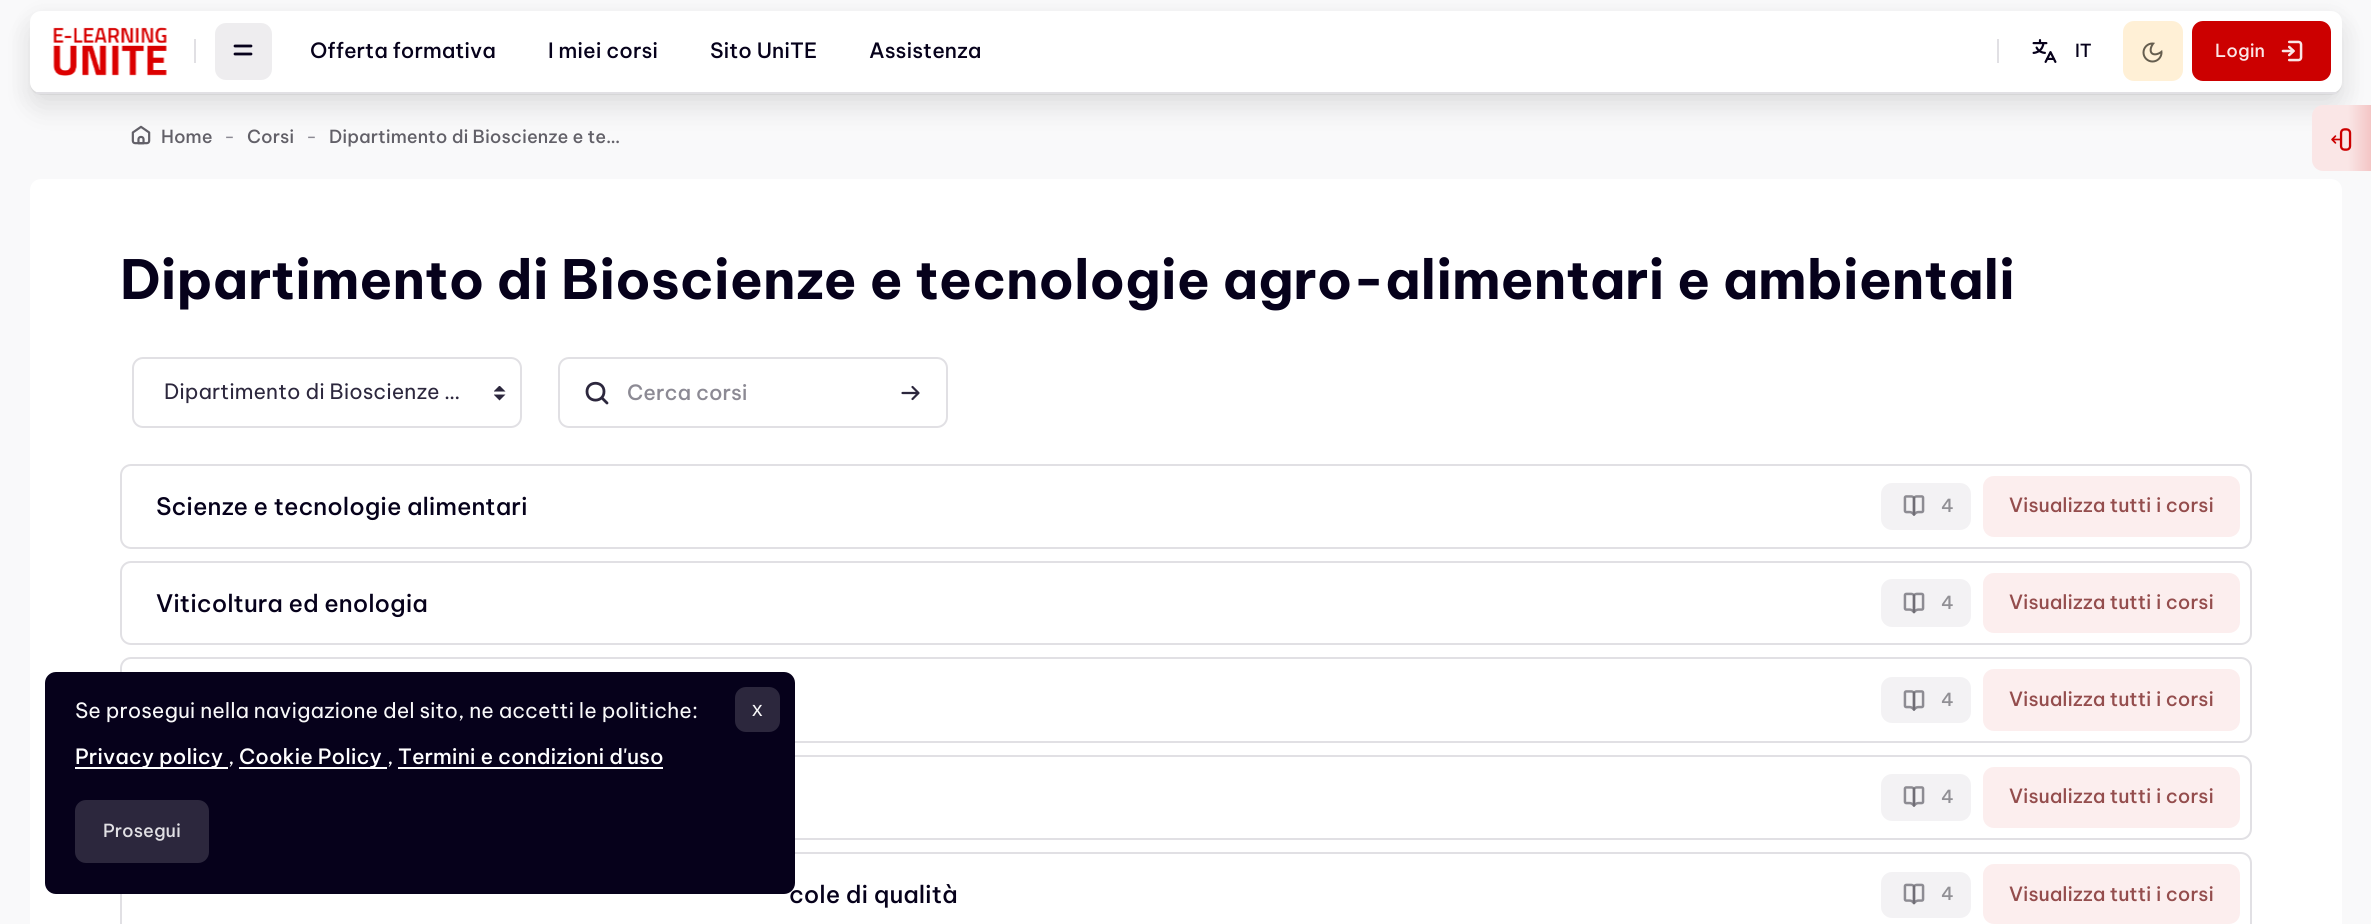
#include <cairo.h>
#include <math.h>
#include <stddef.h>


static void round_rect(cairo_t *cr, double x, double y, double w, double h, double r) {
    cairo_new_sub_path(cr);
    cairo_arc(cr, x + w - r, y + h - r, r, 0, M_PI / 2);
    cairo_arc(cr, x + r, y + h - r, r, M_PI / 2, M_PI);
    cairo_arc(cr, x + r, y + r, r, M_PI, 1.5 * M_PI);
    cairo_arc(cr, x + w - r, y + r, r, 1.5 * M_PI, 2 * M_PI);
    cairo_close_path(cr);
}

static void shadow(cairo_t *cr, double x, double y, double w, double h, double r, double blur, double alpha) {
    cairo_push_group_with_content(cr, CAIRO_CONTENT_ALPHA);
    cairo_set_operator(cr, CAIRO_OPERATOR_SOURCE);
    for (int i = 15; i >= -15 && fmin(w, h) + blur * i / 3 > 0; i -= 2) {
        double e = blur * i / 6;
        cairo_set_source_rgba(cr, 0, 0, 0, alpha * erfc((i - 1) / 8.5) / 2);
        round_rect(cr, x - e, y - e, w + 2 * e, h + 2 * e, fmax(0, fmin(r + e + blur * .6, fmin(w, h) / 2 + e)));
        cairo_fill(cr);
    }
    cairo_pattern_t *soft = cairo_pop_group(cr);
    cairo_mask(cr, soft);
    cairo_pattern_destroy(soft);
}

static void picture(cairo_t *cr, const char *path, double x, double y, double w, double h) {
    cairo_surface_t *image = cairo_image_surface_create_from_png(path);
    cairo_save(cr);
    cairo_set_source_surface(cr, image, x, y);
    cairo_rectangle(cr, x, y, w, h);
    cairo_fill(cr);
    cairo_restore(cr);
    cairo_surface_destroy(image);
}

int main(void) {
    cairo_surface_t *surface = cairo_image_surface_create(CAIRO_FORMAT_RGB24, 2371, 924);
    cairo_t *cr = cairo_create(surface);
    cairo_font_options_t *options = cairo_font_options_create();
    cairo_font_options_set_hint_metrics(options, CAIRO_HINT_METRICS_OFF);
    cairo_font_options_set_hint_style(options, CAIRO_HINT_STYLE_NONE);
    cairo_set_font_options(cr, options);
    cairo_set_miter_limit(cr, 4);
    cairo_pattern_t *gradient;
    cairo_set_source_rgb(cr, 0.976, 0.976, 0.98);
    cairo_paint(cr);
    picture(cr, "img5.png", 131, 125, 20, 20);
    cairo_set_source_rgb(cr, 0, 0, 0);
    shadow(cr, 30, 26, 2312, 82, 11, 15, 0.08);
    shadow(cr, 30, 17, 2312, 82, 11, 12, 0.05);
    cairo_set_source_rgba(cr, 0, 0, 0, 0.05);
    cairo_new_path(cr);
    cairo_move_to(cr, 30, 82);
    cairo_line_to(cr, 30, 84);
    cairo_curve_to(cr, 30, 90, 35, 95, 41, 95);
    cairo_line_to(cr, 2331, 95);
    cairo_curve_to(cr, 2337, 95, 2342, 90, 2342, 84);
    cairo_line_to(cr, 2342, 23);
    cairo_line_to(cr, 2341, 19);
    cairo_line_to(cr, 2342, 82);
    cairo_curve_to(cr, 2342, 88, 2337, 93, 2331, 93);
    cairo_line_to(cr, 40, 93);
    cairo_curve_to(cr, 35, 93, 30, 88, 30, 82);
    cairo_close_path(cr);
    cairo_fill(cr);
    cairo_set_source_rgb(cr, 1, 1, 1);
    round_rect(cr, 30, 11, 2312, 82, 11);
    cairo_fill(cr);
    cairo_set_source_rgb(cr, 0.882, 0.878, 0.894);
    cairo_rectangle(cr, 36, 92, 2301, 2);
    cairo_fill(cr);
    picture(cr, "img1.png", 53, 27, 114, 49);
    cairo_rectangle(cr, 194, 39, 2, 24);
    cairo_fill(cr);
    cairo_set_source_rgb(cr, 0.933, 0.929, 0.937);
    round_rect(cr, 215, 23, 57, 57, 11);
    cairo_fill(cr);
    cairo_new_path(cr);
    cairo_move_to(cr, 235, 46);
    cairo_line_to(cr, 251, 46);
    cairo_move_to(cr, 235, 54);
    cairo_line_to(cr, 251, 54);
    cairo_set_source_rgb(cr, 0.027, 0.004, 0.106);
    cairo_set_line_width(cr, 2.8);
    cairo_set_line_cap(cr, CAIRO_LINE_CAP_ROUND);
    cairo_set_line_join(cr, CAIRO_LINE_JOIN_ROUND);
    cairo_stroke(cr);
    cairo_select_font_face(cr, "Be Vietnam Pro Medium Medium", CAIRO_FONT_SLANT_NORMAL, CAIRO_FONT_WEIGHT_NORMAL);
    cairo_set_font_size(cr, 21);
    cairo_move_to(cr, 310, 58);
    cairo_show_text(cr, "Offerta formativa");
    cairo_move_to(cr, 548, 58);
    cairo_show_text(cr, "I miei corsi");
    cairo_move_to(cr, 710, 58);
    cairo_show_text(cr, "Sito UniTE");
    cairo_move_to(cr, 869, 58);
    cairo_show_text(cr, "Assistenza");
    cairo_set_source_rgb(cr, 0.882, 0.878, 0.894);
    cairo_rectangle(cr, 1997, 39, 2, 24);
    cairo_fill(cr);
    picture(cr, "img2.png", 2032, 39, 25, 24);
    cairo_set_font_size(cr, 18);
    cairo_set_source_rgb(cr, 0.027, 0.004, 0.106);
    cairo_move_to(cr, 2075, 57);
    cairo_show_text(cr, "IT");
    cairo_set_source_rgb(cr, 1, 0.941, 0.839);
    round_rect(cr, 2123, 21, 60, 60, 11);
    cairo_fill(cr);
    picture(cr, "img3.png", 2142, 42, 21, 21);
    cairo_set_source_rgb(cr, 0.8, 0, 0);
    round_rect(cr, 2192, 21, 139, 60, 11);
    cairo_fill(cr);
    cairo_set_source_rgb(cr, 0.98, 0.902, 0.902);
    cairo_move_to(cr, 2215, 57);
    cairo_show_text(cr, "Login");
    picture(cr, "img4.png", 2281, 40, 22, 22);
    cairo_set_source_rgb(cr, 0.384, 0.376, 0.408);
    cairo_move_to(cr, 161, 143);
    cairo_show_text(cr, "Home");
    cairo_select_font_face(cr, "Be Vietnam Pro", CAIRO_FONT_SLANT_NORMAL, CAIRO_FONT_WEIGHT_NORMAL);
    cairo_set_source_rgb(cr, 0.549, 0.541, 0.58);
    cairo_move_to(cr, 224, 143);
    cairo_show_text(cr, "-");
    cairo_select_font_face(cr, "Be Vietnam Pro Medium Medium", CAIRO_FONT_SLANT_NORMAL, CAIRO_FONT_WEIGHT_NORMAL);
    cairo_set_source_rgb(cr, 0.384, 0.376, 0.408);
    cairo_move_to(cr, 247, 143);
    cairo_show_text(cr, "Corsi");
    cairo_select_font_face(cr, "Be Vietnam Pro", CAIRO_FONT_SLANT_NORMAL, CAIRO_FONT_WEIGHT_NORMAL);
    cairo_set_source_rgb(cr, 0.549, 0.541, 0.58);
    cairo_move_to(cr, 306, 143);
    cairo_show_text(cr, "-");
    cairo_select_font_face(cr, "Be Vietnam Pro Medium Medium", CAIRO_FONT_SLANT_NORMAL, CAIRO_FONT_WEIGHT_NORMAL);
    cairo_set_source_rgb(cr, 0.384, 0.376, 0.408);
    cairo_move_to(cr, 329, 143);
    cairo_show_text(cr, "Dipartimento di Bioscienze e te…");
    gradient = cairo_pattern_create_linear(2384, 138, 2312, 138);
    cairo_pattern_add_color_stop_rgba(gradient, 0, 0.941, 0.702, 0.702, 1);
    cairo_pattern_add_color_stop_rgba(gradient, 0.5, 0.98, 0.902, 0.902, 1);
    cairo_set_source(cr, gradient);
    cairo_pattern_destroy(gradient);
    cairo_new_path(cr);
    cairo_move_to(cr, 2323, 105);
    cairo_line_to(cr, 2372, 105);
    cairo_line_to(cr, 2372, 171);
    cairo_line_to(cr, 2323, 171);
    cairo_curve_to(cr, 2317, 171, 2312, 166, 2312, 160);
    cairo_line_to(cr, 2312, 116);
    cairo_curve_to(cr, 2312, 110, 2317, 105, 2323, 105);
    cairo_close_path(cr);
    cairo_fill(cr);
    picture(cr, "img6.png", 2331, 128, 21, 23);
    cairo_set_source_rgb(cr, 1, 1, 1);
    round_rect(cr, 30, 179, 2312, 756, 11);
    cairo_fill(cr);
    cairo_select_font_face(cr, "Be Vietnam Pro", CAIRO_FONT_SLANT_NORMAL, CAIRO_FONT_WEIGHT_BOLD);
    cairo_set_font_size(cr, 54);
    cairo_set_source_rgb(cr, 0.027, 0.004, 0.106);
    cairo_move_to(cr, 120, 299);
    cairo_show_text(cr, "Dipartimento di Bioscienze e tecnologie agro-alimentari e ambientali");
    picture(cr, "img7.png", 494, 386, 12, 15);
    round_rect(cr, 133, 358, 388, 69, 10);
    cairo_set_source_rgb(cr, 0.882, 0.878, 0.894);
    cairo_set_line_width(cr, 2);
    cairo_set_line_cap(cr, CAIRO_LINE_CAP_BUTT);
    cairo_set_line_join(cr, CAIRO_LINE_JOIN_MITER);
    cairo_stroke(cr);
    cairo_select_font_face(cr, "Be Vietnam Pro", CAIRO_FONT_SLANT_NORMAL, CAIRO_FONT_WEIGHT_NORMAL);
    cairo_set_font_size(cr, 21);
    cairo_set_source_rgb(cr, 0.173, 0.153, 0.239);
    cairo_move_to(cr, 164, 399);
    cairo_show_text(cr, "Dipartimento di Bioscienze …");
    round_rect(cr, 559, 358, 388, 69, 10);
    cairo_set_source_rgb(cr, 0.882, 0.878, 0.894);
    cairo_stroke(cr);
    cairo_new_path(cr);
    cairo_move_to(cr, 607, 403);
    cairo_line_to(cr, 602, 398);
    cairo_move_to(cr, 587, 391.5);
    cairo_curve_to(cr, 587, 380.5, 604, 380.5, 604, 391.5);
    cairo_curve_to(cr, 604, 403, 587, 403, 587, 391.5);
    cairo_close_path(cr);
    cairo_set_source_rgb(cr, 0.173, 0.153, 0.239);
    cairo_set_line_width(cr, 2.8);
    cairo_set_line_cap(cr, CAIRO_LINE_CAP_ROUND);
    cairo_set_line_join(cr, CAIRO_LINE_JOIN_ROUND);
    cairo_stroke(cr);
    cairo_select_font_face(cr, "Be Vietnam Pro Medium Medium", CAIRO_FONT_SLANT_NORMAL, CAIRO_FONT_WEIGHT_NORMAL);
    cairo_set_source_rgb(cr, 0.549, 0.541, 0.58);
    cairo_move_to(cr, 627, 400);
    cairo_show_text(cr, "Cerca corsi");
    cairo_new_path(cr);
    cairo_move_to(cr, 912.5, 387);
    cairo_line_to(cr, 918.5, 393);
    cairo_line_to(cr, 912.5, 399);
    cairo_move_to(cr, 918.5, 393);
    cairo_line_to(cr, 902.5, 393);
    cairo_set_source_rgb(cr, 0.173, 0.153, 0.239);
    cairo_set_line_width(cr, 2.2);
    cairo_stroke(cr);
    round_rect(cr, 121, 465, 2130, 83, 10);
    cairo_set_source_rgb(cr, 0.882, 0.878, 0.894);
    cairo_set_line_width(cr, 2);
    cairo_set_line_cap(cr, CAIRO_LINE_CAP_BUTT);
    cairo_set_line_join(cr, CAIRO_LINE_JOIN_MITER);
    cairo_stroke(cr);
    cairo_set_font_size(cr, 24);
    cairo_set_source_rgb(cr, 0.027, 0.004, 0.106);
    cairo_move_to(cr, 156, 515);
    cairo_show_text(cr, "Scienze e tecnologie alimentari");
    cairo_set_source_rgb(cr, 0.953, 0.949, 0.957);
    round_rect(cr, 1881, 483, 90, 47, 11);
    cairo_fill(cr);
    picture(cr, "img8.png", 1903, 495, 22, 21);
    cairo_set_font_size(cr, 18);
    cairo_set_source_rgb(cr, 0.569, 0.565, 0.584);
    cairo_move_to(cr, 1941, 512);
    cairo_show_text(cr, "4");
    cairo_set_source_rgb(cr, 0.988, 0.933, 0.933);
    round_rect(cr, 1983, 476, 257, 61, 11);
    cairo_fill(cr);
    cairo_set_font_size(cr, 19.5);
    cairo_set_source_rgb(cr, 0.58, 0.302, 0.302);
    cairo_move_to(cr, 2009, 512);
    cairo_show_text(cr, "Visualizza tutti i corsi");
    round_rect(cr, 121, 562, 2130, 82, 10);
    cairo_set_source_rgb(cr, 0.882, 0.878, 0.894);
    cairo_stroke(cr);
    cairo_set_font_size(cr, 24);
    cairo_set_source_rgb(cr, 0.027, 0.004, 0.106);
    cairo_move_to(cr, 156, 612);
    cairo_show_text(cr, "Viticoltura ed enologia");
    cairo_set_source_rgb(cr, 0.953, 0.949, 0.957);
    round_rect(cr, 1881, 579, 90, 48, 11);
    cairo_fill(cr);
    picture(cr, "img9.png", 1903, 592, 22, 22);
    cairo_set_font_size(cr, 18);
    cairo_set_source_rgb(cr, 0.569, 0.565, 0.584);
    cairo_move_to(cr, 1941, 609);
    cairo_show_text(cr, "4");
    cairo_set_source_rgb(cr, 0.988, 0.933, 0.933);
    round_rect(cr, 1983, 573, 257, 60, 11);
    cairo_fill(cr);
    cairo_set_font_size(cr, 19.5);
    cairo_set_source_rgb(cr, 0.58, 0.302, 0.302);
    cairo_move_to(cr, 2009, 609);
    cairo_show_text(cr, "Visualizza tutti i corsi");
    round_rect(cr, 121, 658, 2130, 84, 10);
    cairo_set_source_rgb(cr, 0.882, 0.878, 0.894);
    cairo_stroke(cr);
    cairo_set_source_rgb(cr, 0.953, 0.949, 0.957);
    round_rect(cr, 1881, 677, 90, 46, 11);
    cairo_fill(cr);
    picture(cr, "img8.png", 1903, 690, 22, 21);
    cairo_set_font_size(cr, 18);
    cairo_set_source_rgb(cr, 0.569, 0.565, 0.584);
    cairo_move_to(cr, 1941, 706);
    cairo_show_text(cr, "4");
    cairo_set_source_rgb(cr, 0.988, 0.933, 0.933);
    round_rect(cr, 1983, 669, 257, 62, 11);
    cairo_fill(cr);
    cairo_set_font_size(cr, 19.5);
    cairo_set_source_rgb(cr, 0.58, 0.302, 0.302);
    cairo_move_to(cr, 2009, 706);
    cairo_show_text(cr, "Visualizza tutti i corsi");
    round_rect(cr, 121, 756, 2130, 83, 10);
    cairo_set_source_rgb(cr, 0.882, 0.878, 0.894);
    cairo_stroke(cr);
    cairo_set_source_rgb(cr, 0.953, 0.949, 0.957);
    round_rect(cr, 1881, 774, 90, 47, 11);
    cairo_fill(cr);
    picture(cr, "img8.png", 1903, 786, 22, 21);
    cairo_set_font_size(cr, 18);
    cairo_set_source_rgb(cr, 0.569, 0.565, 0.584);
    cairo_move_to(cr, 1941, 803);
    cairo_show_text(cr, "4");
    cairo_set_source_rgb(cr, 0.988, 0.933, 0.933);
    round_rect(cr, 1983, 767, 257, 61, 11);
    cairo_fill(cr);
    cairo_set_font_size(cr, 19.5);
    cairo_set_source_rgb(cr, 0.58, 0.302, 0.302);
    cairo_move_to(cr, 2009, 803);
    cairo_show_text(cr, "Visualizza tutti i corsi");
    round_rect(cr, 121, 853, 2130, 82, 10);
    cairo_set_source_rgb(cr, 0.882, 0.878, 0.894);
    cairo_stroke(cr);
    cairo_set_font_size(cr, 24);
    cairo_set_source_rgb(cr, 0.027, 0.004, 0.106);
    cairo_move_to(cr, 789, 903);
    cairo_show_text(cr, "cole di qualità");
    cairo_set_source_rgb(cr, 0.953, 0.949, 0.957);
    round_rect(cr, 1881, 872, 90, 46, 11);
    cairo_fill(cr);
    picture(cr, "img9.png", 1903, 883, 22, 22);
    cairo_set_font_size(cr, 18);
    cairo_set_source_rgb(cr, 0.569, 0.565, 0.584);
    cairo_move_to(cr, 1941, 900);
    cairo_show_text(cr, "4");
    cairo_set_source_rgb(cr, 0.988, 0.933, 0.933);
    round_rect(cr, 1983, 864, 257, 60, 11);
    cairo_fill(cr);
    cairo_set_font_size(cr, 19.5);
    cairo_set_source_rgb(cr, 0.58, 0.302, 0.302);
    cairo_move_to(cr, 2009, 901);
    cairo_show_text(cr, "Visualizza tutti i corsi");
    cairo_set_source_rgb(cr, 0.027, 0.004, 0.106);
    round_rect(cr, 45, 672, 750, 222, 11);
    cairo_fill(cr);
    cairo_select_font_face(cr, "Be Vietnam Pro", CAIRO_FONT_SLANT_NORMAL, CAIRO_FONT_WEIGHT_NORMAL);
    cairo_set_font_size(cr, 21);
    cairo_set_source_rgb(cr, 0.976, 0.976, 0.98);
    cairo_move_to(cr, 75, 718);
    cairo_show_text(cr, "Se prosegui nella navigazione del sito, ne accetti le politiche:");
    cairo_set_source_rgb(cr, 1, 1, 1);
    cairo_rectangle(cr, 75, 767, 153, 2);
    cairo_fill(cr);
    cairo_select_font_face(cr, "Be Vietnam Pro Medium Medium", CAIRO_FONT_SLANT_NORMAL, CAIRO_FONT_WEIGHT_NORMAL);
    cairo_move_to(cr, 75, 764);
    cairo_show_text(cr, "Privacy policy");
    cairo_select_font_face(cr, "Be Vietnam Pro", CAIRO_FONT_SLANT_NORMAL, CAIRO_FONT_WEIGHT_NORMAL);
    cairo_set_source_rgb(cr, 0.976, 0.976, 0.98);
    cairo_move_to(cr, 228, 764);
    cairo_show_text(cr, ",");
    cairo_set_source_rgb(cr, 1, 1, 1);
    cairo_rectangle(cr, 239, 767, 148, 2);
    cairo_fill(cr);
    cairo_select_font_face(cr, "Be Vietnam Pro Medium Medium", CAIRO_FONT_SLANT_NORMAL, CAIRO_FONT_WEIGHT_NORMAL);
    cairo_move_to(cr, 239, 764);
    cairo_show_text(cr, "Cookie Policy");
    cairo_select_font_face(cr, "Be Vietnam Pro", CAIRO_FONT_SLANT_NORMAL, CAIRO_FONT_WEIGHT_NORMAL);
    cairo_set_source_rgb(cr, 0.976, 0.976, 0.98);
    cairo_move_to(cr, 387, 764);
    cairo_show_text(cr, ",");
    cairo_set_source_rgb(cr, 1, 1, 1);
    cairo_rectangle(cr, 398, 767, 265, 2);
    cairo_fill(cr);
    cairo_select_font_face(cr, "Be Vietnam Pro Medium Medium", CAIRO_FONT_SLANT_NORMAL, CAIRO_FONT_WEIGHT_NORMAL);
    cairo_move_to(cr, 398, 764);
    cairo_show_text(cr, "Termini e condizioni d'uso");
    cairo_set_source_rgb(cr, 0.173, 0.153, 0.239);
    round_rect(cr, 735, 687, 45, 45, 11);
    cairo_fill(cr);
    cairo_select_font_face(cr, "Liberation Sans", CAIRO_FONT_SLANT_NORMAL, CAIRO_FONT_WEIGHT_NORMAL);
    cairo_set_source_rgb(cr, 0.976, 0.976, 0.98);
    cairo_move_to(cr, 752, 716);
    cairo_show_text(cr, "x");
    cairo_set_source_rgb(cr, 0.173, 0.153, 0.239);
    round_rect(cr, 75, 800, 134, 63, 11);
    cairo_fill(cr);
    cairo_select_font_face(cr, "Be Vietnam Pro Medium Medium", CAIRO_FONT_SLANT_NORMAL, CAIRO_FONT_WEIGHT_NORMAL);
    cairo_set_font_size(cr, 18);
    cairo_set_source_rgb(cr, 0.882, 0.878, 0.894);
    cairo_move_to(cr, 103, 837);
    cairo_show_text(cr, "Prosegui");
    cairo_surface_write_to_png(surface, "page.png");
    cairo_font_options_destroy(options);
    cairo_destroy(cr);
    cairo_surface_destroy(surface);
    return 0;
}
